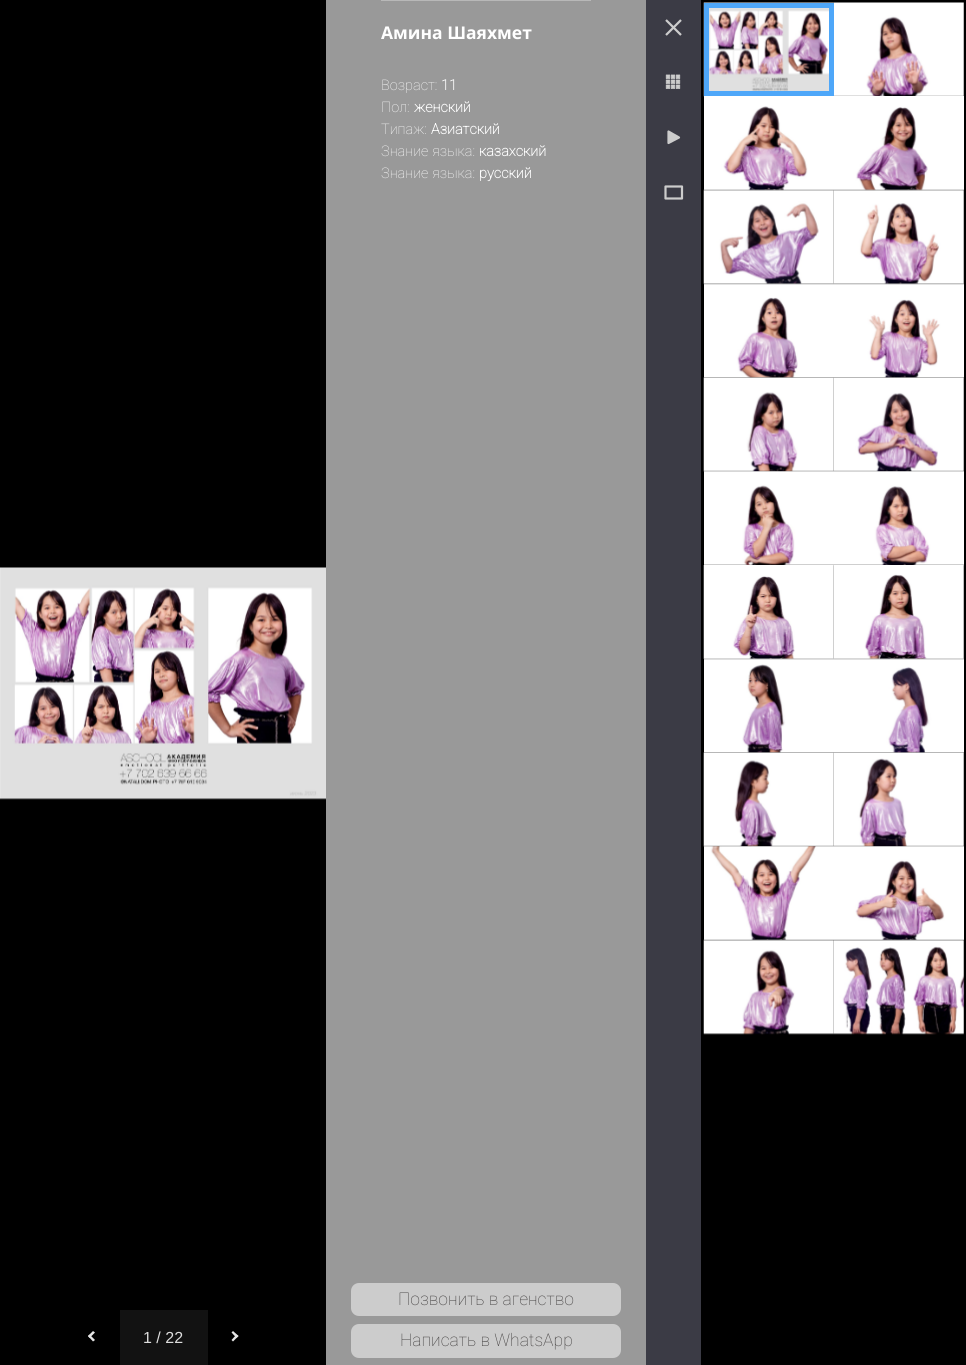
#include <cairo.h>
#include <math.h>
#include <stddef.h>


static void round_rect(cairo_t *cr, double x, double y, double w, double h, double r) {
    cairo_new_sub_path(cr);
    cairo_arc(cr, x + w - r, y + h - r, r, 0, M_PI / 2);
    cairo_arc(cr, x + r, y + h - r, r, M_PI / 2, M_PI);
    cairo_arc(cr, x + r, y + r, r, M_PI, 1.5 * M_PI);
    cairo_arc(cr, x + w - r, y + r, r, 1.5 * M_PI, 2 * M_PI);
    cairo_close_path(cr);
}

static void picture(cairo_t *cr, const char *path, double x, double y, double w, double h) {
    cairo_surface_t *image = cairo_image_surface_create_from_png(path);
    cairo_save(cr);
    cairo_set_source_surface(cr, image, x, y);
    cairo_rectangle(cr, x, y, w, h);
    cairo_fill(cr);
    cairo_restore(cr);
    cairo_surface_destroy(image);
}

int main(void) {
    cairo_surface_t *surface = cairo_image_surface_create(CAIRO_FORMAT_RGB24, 966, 1365);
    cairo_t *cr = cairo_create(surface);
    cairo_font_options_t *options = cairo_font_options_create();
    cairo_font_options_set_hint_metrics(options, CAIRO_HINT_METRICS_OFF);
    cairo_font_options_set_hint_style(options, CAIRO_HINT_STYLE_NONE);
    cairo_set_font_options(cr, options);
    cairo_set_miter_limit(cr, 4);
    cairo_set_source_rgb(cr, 0, 0, 0);
    cairo_paint(cr);
    picture(cr, "img1.png", 0, 567, 326, 233);
    cairo_set_source_rgb(cr, 0.6, 0.6, 0.6);
    cairo_rectangle(cr, 326, 0, 320, 1365);
    cairo_fill(cr);
    cairo_set_source_rgb(cr, 0.722, 0.722, 0.722);
    cairo_rectangle(cr, 381, 0, 210, 1);
    cairo_fill(cr);
    cairo_select_font_face(cr, "Open Sans", CAIRO_FONT_SLANT_NORMAL, CAIRO_FONT_WEIGHT_BOLD);
    cairo_set_font_size(cr, 17.5);
    cairo_set_source_rgb(cr, 1, 1, 1);
    cairo_move_to(cr, 381, 39);
    cairo_show_text(cr, "Амина Шаяхмет");
    cairo_select_font_face(cr, "Roboto Thin", CAIRO_FONT_SLANT_NORMAL, CAIRO_FONT_WEIGHT_NORMAL);
    cairo_set_font_size(cr, 14.5);
    cairo_move_to(cr, 381, 90);
    cairo_show_text(cr, "Возраст:");
    cairo_select_font_face(cr, "Roboto", CAIRO_FONT_SLANT_NORMAL, CAIRO_FONT_WEIGHT_BOLD);
    cairo_move_to(cr, 441, 90);
    cairo_show_text(cr, "11");
    cairo_select_font_face(cr, "Roboto Thin", CAIRO_FONT_SLANT_NORMAL, CAIRO_FONT_WEIGHT_NORMAL);
    cairo_move_to(cr, 381, 112);
    cairo_show_text(cr, "Пол:");
    cairo_select_font_face(cr, "Roboto", CAIRO_FONT_SLANT_NORMAL, CAIRO_FONT_WEIGHT_BOLD);
    cairo_move_to(cr, 414, 112);
    cairo_show_text(cr, "женский");
    cairo_select_font_face(cr, "Roboto Thin", CAIRO_FONT_SLANT_NORMAL, CAIRO_FONT_WEIGHT_NORMAL);
    cairo_move_to(cr, 381, 134);
    cairo_show_text(cr, "Типаж:");
    cairo_select_font_face(cr, "Roboto", CAIRO_FONT_SLANT_NORMAL, CAIRO_FONT_WEIGHT_BOLD);
    cairo_move_to(cr, 431, 134);
    cairo_show_text(cr, "Азиатский");
    cairo_select_font_face(cr, "Roboto Thin", CAIRO_FONT_SLANT_NORMAL, CAIRO_FONT_WEIGHT_NORMAL);
    cairo_move_to(cr, 381, 156);
    cairo_show_text(cr, "Знание языка:");
    cairo_select_font_face(cr, "Roboto", CAIRO_FONT_SLANT_NORMAL, CAIRO_FONT_WEIGHT_BOLD);
    cairo_move_to(cr, 479, 156);
    cairo_show_text(cr, "казахский");
    cairo_select_font_face(cr, "Roboto Thin", CAIRO_FONT_SLANT_NORMAL, CAIRO_FONT_WEIGHT_NORMAL);
    cairo_move_to(cr, 381, 178);
    cairo_show_text(cr, "Знание языка:");
    cairo_select_font_face(cr, "Roboto", CAIRO_FONT_SLANT_NORMAL, CAIRO_FONT_WEIGHT_BOLD);
    cairo_move_to(cr, 479, 178);
    cairo_show_text(cr, "русский");
    cairo_set_source_rgb(cr, 0.8, 0.8, 0.8);
    round_rect(cr, 351, 1283, 270, 33, 8);
    cairo_fill(cr);
    cairo_select_font_face(cr, "Roboto Thin", CAIRO_FONT_SLANT_NORMAL, CAIRO_FONT_WEIGHT_NORMAL);
    cairo_set_font_size(cr, 17.5);
    cairo_set_source_rgb(cr, 0.243, 0.231, 0.231);
    cairo_move_to(cr, 398, 1305);
    cairo_show_text(cr, "Позвонить в агенство");
    cairo_set_source_rgb(cr, 0.8, 0.8, 0.8);
    round_rect(cr, 351, 1324, 270, 34, 8);
    cairo_fill(cr);
    cairo_set_source_rgb(cr, 0.243, 0.231, 0.231);
    cairo_move_to(cr, 400, 1346);
    cairo_show_text(cr, "Написать в WhatsApp");
    cairo_set_source_rgb(cr, 0.231, 0.231, 0.271);
    cairo_rectangle(cr, 646, 0, 55, 1365);
    cairo_fill(cr);
    cairo_new_path(cr);
    cairo_move_to(cr, 666, 20);
    cairo_line_to(cr, 681, 35);
    cairo_move_to(cr, 681, 20);
    cairo_line_to(cr, 666, 35);
    cairo_set_source_rgb(cr, 0.8, 0.8, 0.8);
    cairo_set_line_width(cr, 2.2);
    cairo_set_line_join(cr, CAIRO_LINE_JOIN_ROUND);
    cairo_stroke(cr);
    picture(cr, "img2.png", 665, 74, 16, 15);
    cairo_new_path(cr);
    cairo_move_to(cr, 668.5, 131.5);
    cairo_line_to(cr, 679, 137.5);
    cairo_line_to(cr, 668.5, 143);
    cairo_close_path(cr);
    cairo_fill_preserve(cr);
    cairo_stroke(cr);
    cairo_new_path(cr);
    cairo_move_to(cr, 665.5, 186.5);
    cairo_line_to(cr, 665.5, 198.5);
    cairo_line_to(cr, 682, 198.5);
    cairo_line_to(cr, 682, 186.5);
    cairo_line_to(cr, 665.5, 186.5);
    cairo_line_to(cr, 665.5, 192.5);
    cairo_stroke(cr);
    cairo_set_source_rgb(cr, 0.902, 0.902, 0.902);
    cairo_new_path(cr);
    cairo_move_to(cr, 93, 1341.5);
    cairo_line_to(cr, 88, 1336);
    cairo_line_to(cr, 89.5, 1334.5);
    cairo_line_to(cr, 95, 1340);
    cairo_close_path(cr);
    cairo_fill(cr);
    cairo_new_path(cr);
    cairo_move_to(cr, 89.5, 1338);
    cairo_line_to(cr, 88, 1336);
    cairo_line_to(cr, 93, 1331);
    cairo_line_to(cr, 95, 1332.5);
    cairo_close_path(cr);
    cairo_fill(cr);
    cairo_set_source_rgb(cr, 0.071, 0.071, 0.071);
    cairo_rectangle(cr, 120, 1310, 88, 55);
    cairo_fill(cr);
    cairo_select_font_face(cr, "Liberation Sans", CAIRO_FONT_SLANT_NORMAL, CAIRO_FONT_WEIGHT_NORMAL);
    cairo_set_font_size(cr, 16);
    cairo_set_source_rgb(cr, 0.867, 0.867, 0.867);
    cairo_move_to(cr, 143, 1343);
    cairo_show_text(cr, "1 / 22");
    cairo_set_source_rgb(cr, 0.902, 0.902, 0.902);
    cairo_new_path(cr);
    cairo_move_to(cr, 233, 1331);
    cairo_line_to(cr, 238.5, 1336);
    cairo_line_to(cr, 236.5, 1338);
    cairo_line_to(cr, 231.5, 1332.5);
    cairo_close_path(cr);
    cairo_fill(cr);
    cairo_new_path(cr);
    cairo_move_to(cr, 236.5, 1334.5);
    cairo_line_to(cr, 238.5, 1336);
    cairo_line_to(cr, 233, 1341.5);
    cairo_line_to(cr, 231.5, 1340);
    cairo_close_path(cr);
    cairo_fill(cr);
    picture(cr, "img3.png", 703, 2, 131, 95);
    picture(cr, "img4.png", 833, 2, 131, 94);
    cairo_rectangle(cr, 706.5, 5.5, 125, 88);
    cairo_set_source_rgb(cr, 0.306, 0.655, 0.976);
    cairo_set_line_width(cr, 5);
    cairo_set_line_join(cr, CAIRO_LINE_JOIN_MITER);
    cairo_stroke(cr);
    picture(cr, "img5.png", 704, 96, 130, 95);
    picture(cr, "img6.png", 834, 96, 130, 95);
    cairo_set_source_rgba(cr, 0, 0, 0, 0.1);
    cairo_rectangle(cr, 704, 190, 130, 1);
    cairo_fill(cr);
    picture(cr, "img7.png", 703, 189, 131, 96);
    cairo_rectangle(cr, 834, 190, 130, 1);
    cairo_fill(cr);
    picture(cr, "img8.png", 833, 189, 131, 96);
    cairo_rectangle(cr, 704, 284, 130, 1);
    cairo_fill(cr);
    picture(cr, "img9.png", 704, 283, 130, 96);
    cairo_rectangle(cr, 834, 284, 129, 1);
    cairo_fill(cr);
    picture(cr, "img10.png", 834, 283, 130, 96);
    picture(cr, "img11.png", 703, 377, 131, 95);
    picture(cr, "img12.png", 833, 377, 131, 95);
    picture(cr, "img13.png", 704, 471, 130, 95);
    picture(cr, "img14.png", 834, 471, 130, 95);
    picture(cr, "img15.png", 703, 565, 131, 94);
    picture(cr, "img16.png", 833, 565, 131, 94);
    picture(cr, "img17.png", 704, 658, 130, 96);
    picture(cr, "img18.png", 834, 658, 130, 96);
    picture(cr, "img19.png", 703, 752, 131, 95);
    picture(cr, "img20.png", 833, 752, 131, 95);
    picture(cr, "img21.png", 704, 846, 130, 94);
    picture(cr, "img22.png", 834, 846, 130, 94);
    picture(cr, "img23.png", 703, 939, 131, 96);
    picture(cr, "img24.png", 833, 939, 131, 96);
    cairo_surface_write_to_png(surface, "page.png");
    cairo_font_options_destroy(options);
    cairo_destroy(cr);
    cairo_surface_destroy(surface);
    return 0;
}
